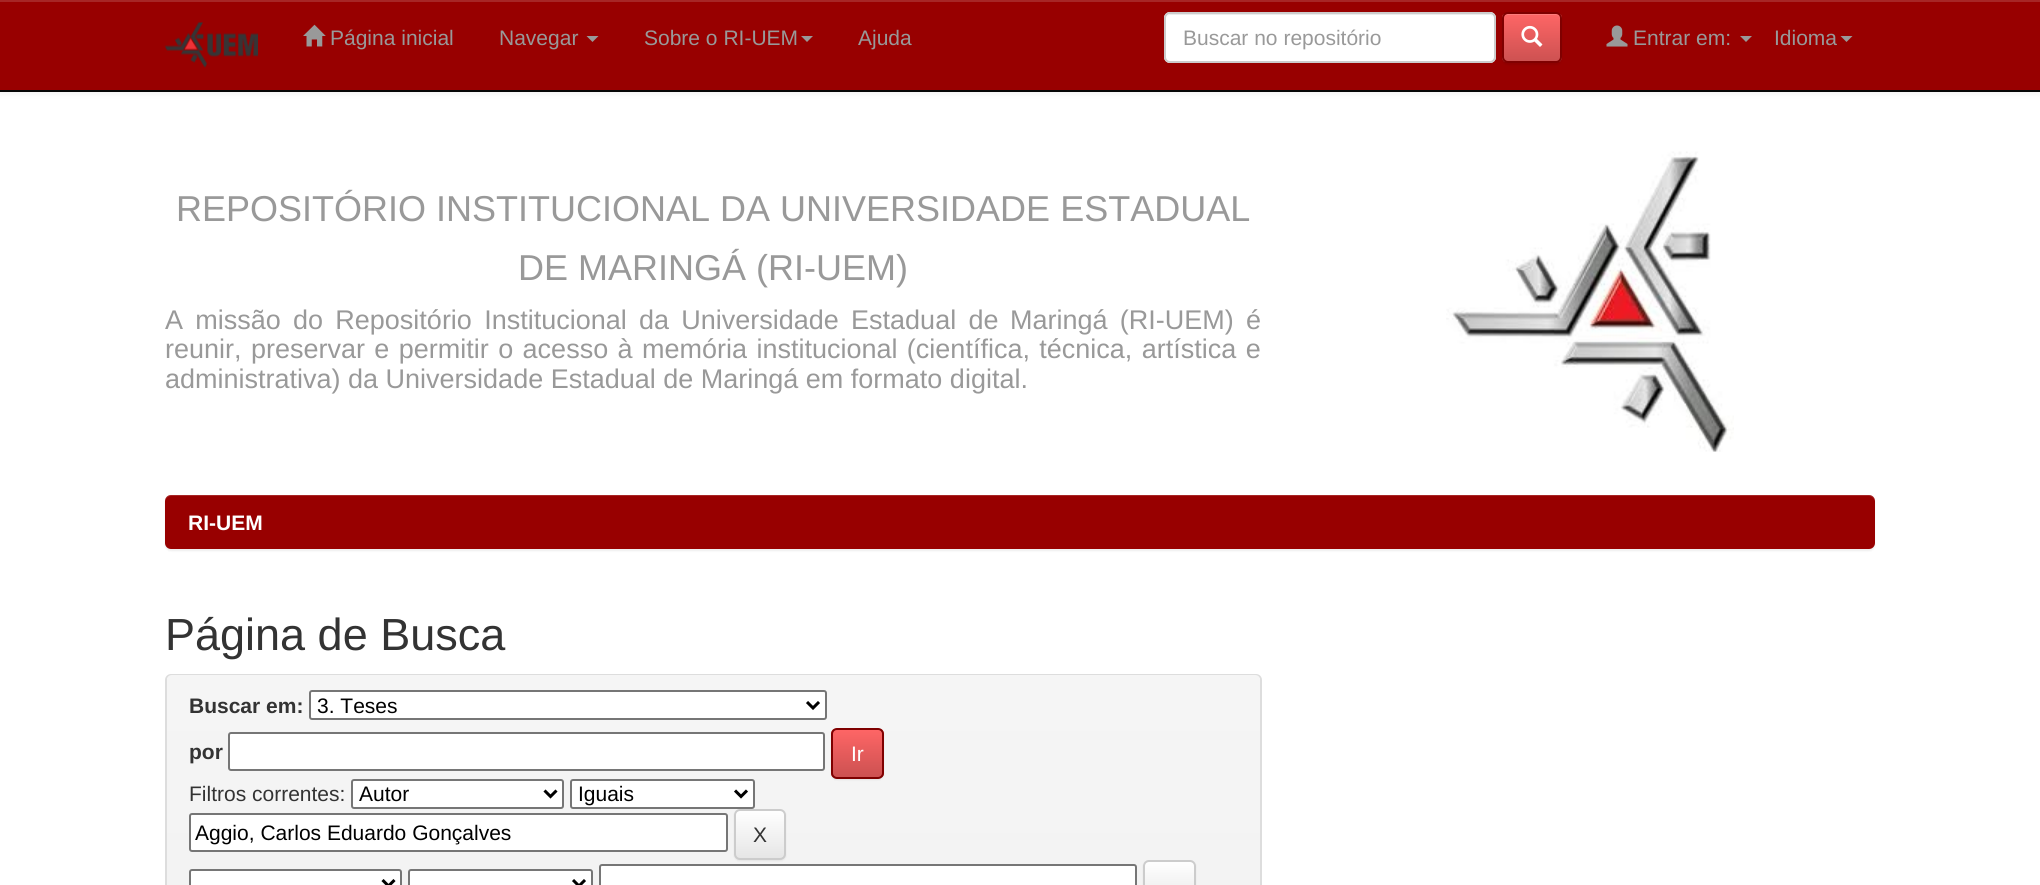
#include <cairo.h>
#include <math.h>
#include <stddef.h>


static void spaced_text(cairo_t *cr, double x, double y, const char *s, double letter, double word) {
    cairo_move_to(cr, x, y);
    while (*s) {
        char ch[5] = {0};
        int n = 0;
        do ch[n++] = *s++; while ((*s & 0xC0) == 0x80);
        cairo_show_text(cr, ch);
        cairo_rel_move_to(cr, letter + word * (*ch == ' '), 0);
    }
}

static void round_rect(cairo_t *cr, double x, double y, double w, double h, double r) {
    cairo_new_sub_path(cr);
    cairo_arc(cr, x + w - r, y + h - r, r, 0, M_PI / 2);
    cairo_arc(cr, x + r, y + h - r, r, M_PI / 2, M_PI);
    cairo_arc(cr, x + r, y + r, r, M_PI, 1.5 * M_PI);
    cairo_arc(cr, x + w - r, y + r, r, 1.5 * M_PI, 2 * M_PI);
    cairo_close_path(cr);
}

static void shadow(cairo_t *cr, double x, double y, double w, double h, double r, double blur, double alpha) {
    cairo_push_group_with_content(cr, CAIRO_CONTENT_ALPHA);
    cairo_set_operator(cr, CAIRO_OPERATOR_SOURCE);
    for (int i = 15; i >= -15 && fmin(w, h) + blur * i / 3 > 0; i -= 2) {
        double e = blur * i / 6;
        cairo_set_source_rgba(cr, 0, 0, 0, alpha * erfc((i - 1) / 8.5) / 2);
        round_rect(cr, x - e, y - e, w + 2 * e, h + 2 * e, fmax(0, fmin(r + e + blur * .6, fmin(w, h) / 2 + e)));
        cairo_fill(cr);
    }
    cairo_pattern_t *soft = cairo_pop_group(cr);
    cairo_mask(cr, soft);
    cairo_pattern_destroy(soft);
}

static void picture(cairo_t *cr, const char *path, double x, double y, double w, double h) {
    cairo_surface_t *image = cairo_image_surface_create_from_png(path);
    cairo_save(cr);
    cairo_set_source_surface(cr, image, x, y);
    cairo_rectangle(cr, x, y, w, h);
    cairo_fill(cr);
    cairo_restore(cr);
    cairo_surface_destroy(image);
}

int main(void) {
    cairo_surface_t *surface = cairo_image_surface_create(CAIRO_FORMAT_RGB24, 2040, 885);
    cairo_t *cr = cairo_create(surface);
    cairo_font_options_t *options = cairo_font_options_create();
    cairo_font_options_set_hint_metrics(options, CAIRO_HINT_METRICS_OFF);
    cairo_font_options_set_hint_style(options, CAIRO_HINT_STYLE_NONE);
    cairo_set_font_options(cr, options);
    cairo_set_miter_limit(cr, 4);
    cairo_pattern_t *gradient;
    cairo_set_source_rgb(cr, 1, 1, 1);
    cairo_paint(cr);
    cairo_set_source_rgb(cr, 0, 0, 0);
    shadow(cr, 0, 2, 2040, 91, 0, 4, 0.07);
    cairo_set_source_rgb(cr, 0.596, 0, 0);
    cairo_rectangle(cr, 0, 2, 2040, 88);
    cairo_fill(cr);
    cairo_set_source_rgb(cr, 0.655, 0.149, 0.149);
    cairo_rectangle(cr, 0, 0, 2040, 2);
    cairo_fill(cr);
    cairo_set_source_rgb(cr, 0.031, 0.031, 0.031);
    cairo_rectangle(cr, 0, 90, 2040, 2);
    cairo_fill(cr);
    picture(cr, "img1.png", 165, 22, 93, 46);
    picture(cr, "img2.png", 303, 24, 23, 23);
    cairo_select_font_face(cr, "Liberation Sans", CAIRO_FONT_SLANT_NORMAL, CAIRO_FONT_WEIGHT_NORMAL);
    cairo_set_font_size(cr, 21);
    cairo_set_source_rgb(cr, 0.6, 0.6, 0.6);
    cairo_move_to(cr, 330, 45);
    cairo_show_text(cr, "Página inicial");
    cairo_move_to(cr, 499, 45);
    cairo_show_text(cr, "Navegar");
    cairo_new_path(cr);
    cairo_move_to(cr, 586.5, 36);
    cairo_line_to(cr, 598.5, 36);
    cairo_line_to(cr, 592.5, 42);
    cairo_close_path(cr);
    cairo_fill(cr);
    cairo_move_to(cr, 644, 45);
    cairo_show_text(cr, "Sobre o RI-UEM");
    cairo_new_path(cr);
    cairo_move_to(cr, 801, 36);
    cairo_line_to(cr, 813, 36);
    cairo_line_to(cr, 807, 42);
    cairo_close_path(cr);
    cairo_fill(cr);
    cairo_move_to(cr, 858, 45);
    cairo_show_text(cr, "Ajuda");
    cairo_set_source_rgb(cr, 1, 1, 1);
    round_rect(cr, 1164, 12, 332, 51, 6);
    cairo_fill(cr);
    cairo_set_source_rgb(cr, 0.925, 0.925, 0.925);
    cairo_new_path(cr);
    cairo_move_to(cr, 1170, 15);
    cairo_line_to(cr, 1490, 15);
    cairo_curve_to(cr, 1492, 15, 1494, 17, 1494, 20);
    cairo_curve_to(cr, 1494, 17, 1492, 14, 1489, 14);
    cairo_line_to(cr, 1171, 14);
    cairo_curve_to(cr, 1168, 14, 1166, 17, 1166, 20);
    cairo_curve_to(cr, 1166, 17, 1168, 15, 1170, 15);
    cairo_close_path(cr);
    cairo_fill(cr);
    round_rect(cr, 1165, 13, 330, 49, 5);
    cairo_set_source_rgb(cr, 0.8, 0.8, 0.8);
    cairo_stroke(cr);
    cairo_set_source_rgb(cr, 0.6, 0.6, 0.6);
    cairo_move_to(cr, 1183, 45);
    cairo_show_text(cr, "Buscar no repositório");
    cairo_set_source_rgb(cr, 0, 0, 0);
    shadow(cr, 1502, 14, 60, 51, 6, 1, 0.07);
    cairo_save(cr);
    round_rect(cr, 1502, 12, 60, 51, 6);
    cairo_clip(cr);
    gradient = cairo_pattern_create_linear(1532, 13, 1532, 62);
    cairo_pattern_add_color_stop_rgba(gradient, 0, 1, 0.4, 0.4, 1);
    cairo_pattern_add_color_stop_rgba(gradient, 1, 0.8, 0.318, 0.318, 1);
    cairo_set_source(cr, gradient);
    cairo_pattern_destroy(gradient);
    cairo_rectangle(cr, 1502, 14, 60, 48);
    cairo_fill(cr);
    cairo_restore(cr);
    cairo_set_source_rgb(cr, 0.992, 0.486, 0.486);
    cairo_new_path(cr);
    cairo_move_to(cr, 1508, 15);
    cairo_line_to(cr, 1556, 15);
    cairo_curve_to(cr, 1558, 15, 1560, 17, 1560, 20);
    cairo_curve_to(cr, 1560, 12, 1553, 14, 1547, 14);
    cairo_line_to(cr, 1516, 14);
    cairo_curve_to(cr, 1510, 14, 1503, 12, 1503, 20);
    cairo_curve_to(cr, 1503, 17, 1505, 15, 1508, 15);
    cairo_close_path(cr);
    cairo_fill(cr);
    round_rect(cr, 1503, 13, 58, 49, 5);
    cairo_set_source_rgb(cr, 0.498, 0, 0);
    cairo_stroke(cr);
    picture(cr, "img3.png", 1521, 25, 22, 22);
    picture(cr, "img4.png", 1606, 25, 22, 22);
    cairo_set_source_rgb(cr, 0.6, 0.6, 0.6);
    cairo_move_to(cr, 1633, 45);
    cairo_show_text(cr, "Entrar em:");
    cairo_new_path(cr);
    cairo_move_to(cr, 1740, 36);
    cairo_line_to(cr, 1752, 36);
    cairo_line_to(cr, 1746, 42);
    cairo_close_path(cr);
    cairo_fill(cr);
    cairo_move_to(cr, 1774, 45);
    cairo_show_text(cr, "Idioma");
    cairo_new_path(cr);
    cairo_move_to(cr, 1840.5, 36);
    cairo_line_to(cr, 1852.5, 36);
    cairo_line_to(cr, 1846.5, 42);
    cairo_close_path(cr);
    cairo_fill(cr);
    cairo_set_font_size(cr, 36);
    cairo_move_to(cr, 176, 221);
    cairo_show_text(cr, "REPOSITÓRIO INSTITUCIONAL DA UNIVERSIDADE ESTADUAL");
    cairo_move_to(cr, 518, 280);
    cairo_show_text(cr, "DE MARINGÁ (RI-UEM)");
    cairo_set_font_size(cr, 27);
    spaced_text(cr, 165, 329, "A missão do Repositório Institucional da Universidade Estadual de", 0, 4.75);
    spaced_text(cr, 1010, 329, "Maringá (RI-UEM) é", 0, 4.75);
    spaced_text(cr, 165, 358, "reunir, preservar e permitir o acesso à memória institucional (científica, técnica, artística e", 0, 1.9);
    cairo_move_to(cr, 165, 388);
    cairo_show_text(cr, "administrativa) da Universidade Estadual de Maringá em formato digital.");
    picture(cr, "img5.png", 1446, 151, 288, 301);
    cairo_set_source_rgb(cr, 0, 0, 0);
    shadow(cr, 165, 497, 1710, 54, 6, 1, 0.07);
    cairo_set_source_rgb(cr, 0.596, 0, 0);
    round_rect(cr, 165, 495, 1710, 54, 6);
    cairo_fill(cr);
    cairo_set_source_rgba(cr, 1, 1, 1, 0.15);
    cairo_new_path(cr);
    cairo_move_to(cr, 171, 496);
    cairo_line_to(cr, 1869, 496);
    cairo_curve_to(cr, 1872, 496, 1875, 499, 1875, 502);
    cairo_line_to(cr, 1875, 501);
    cairo_curve_to(cr, 1875, 498, 1872, 495, 1869, 495);
    cairo_line_to(cr, 171, 495);
    cairo_curve_to(cr, 168, 495, 165, 498, 165, 501);
    cairo_line_to(cr, 165, 502);
    cairo_curve_to(cr, 165, 499, 168, 496, 171, 496);
    cairo_close_path(cr);
    cairo_fill(cr);
    cairo_select_font_face(cr, "Liberation Sans", CAIRO_FONT_SLANT_NORMAL, CAIRO_FONT_WEIGHT_BOLD);
    cairo_set_font_size(cr, 21);
    cairo_set_source_rgb(cr, 1, 1, 1);
    cairo_move_to(cr, 188, 530);
    cairo_show_text(cr, "RI-UEM");
    cairo_select_font_face(cr, "Liberation Sans", CAIRO_FONT_SLANT_NORMAL, CAIRO_FONT_WEIGHT_NORMAL);
    cairo_set_font_size(cr, 45);
    cairo_set_source_rgb(cr, 0.2, 0.2, 0.2);
    cairo_move_to(cr, 165, 650);
    cairo_show_text(cr, "Página de Busca");
    round_rect(cr, 166, 675, 1095, 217, 5);
    cairo_set_source_rgb(cr, 0.867, 0.867, 0.867);
    cairo_stroke(cr);
    gradient = cairo_pattern_create_linear(713, 675, 713, 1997);
    cairo_pattern_add_color_stop_rgba(gradient, 0, 0.961, 0.961, 0.961, 1);
    cairo_pattern_add_color_stop_rgba(gradient, 1, 0.91, 0.91, 0.91, 1);
    cairo_set_source(cr, gradient);
    cairo_pattern_destroy(gradient);
    cairo_new_path(cr);
    cairo_move_to(cr, 172, 675);
    cairo_line_to(cr, 1255, 675);
    cairo_curve_to(cr, 1258, 675, 1260, 677, 1260, 680);
    cairo_line_to(cr, 1260, 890);
    cairo_line_to(cr, 167, 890);
    cairo_line_to(cr, 167, 680);
    cairo_curve_to(cr, 167, 677, 169, 675, 172, 675);
    cairo_close_path(cr);
    cairo_fill(cr);
    cairo_select_font_face(cr, "Liberation Sans", CAIRO_FONT_SLANT_NORMAL, CAIRO_FONT_WEIGHT_BOLD);
    cairo_set_font_size(cr, 21);
    cairo_set_source_rgb(cr, 0.2, 0.2, 0.2);
    cairo_move_to(cr, 189, 713);
    cairo_show_text(cr, "Buscar em:");
    cairo_set_source_rgb(cr, 1, 1, 1);
    round_rect(cr, 310, 691, 516, 28, 2);
    cairo_fill_preserve(cr);
    cairo_set_source_rgb(cr, 0.463, 0.463, 0.463);
    cairo_stroke(cr);
    cairo_new_path(cr);
    cairo_move_to(cr, 807, 702);
    cairo_line_to(cr, 813, 708);
    cairo_line_to(cr, 819, 702);
    cairo_set_source_rgb(cr, 0, 0, 0);
    cairo_set_line_width(cr, 3);
    cairo_stroke(cr);
    cairo_select_font_face(cr, "Liberation Sans", CAIRO_FONT_SLANT_NORMAL, CAIRO_FONT_WEIGHT_NORMAL);
    cairo_move_to(cr, 317, 713);
    cairo_show_text(cr, "3. Teses");
    cairo_select_font_face(cr, "Liberation Sans", CAIRO_FONT_SLANT_NORMAL, CAIRO_FONT_WEIGHT_BOLD);
    cairo_set_source_rgb(cr, 0.2, 0.2, 0.2);
    cairo_move_to(cr, 189, 759);
    cairo_show_text(cr, "por");
    cairo_set_source_rgb(cr, 1, 1, 1);
    round_rect(cr, 229, 733, 595, 37, 2);
    cairo_fill_preserve(cr);
    cairo_set_source_rgb(cr, 0.463, 0.463, 0.463);
    cairo_set_line_width(cr, 2);
    cairo_stroke(cr);
    cairo_set_source_rgb(cr, 0, 0, 0);
    shadow(cr, 831, 729, 53, 51, 6, 1, 0.07);
    cairo_save(cr);
    round_rect(cr, 831, 728, 53, 51, 6);
    cairo_clip(cr);
    gradient = cairo_pattern_create_linear(857, 729, 857, 777);
    cairo_pattern_add_color_stop_rgba(gradient, 0, 1, 0.4, 0.4, 1);
    cairo_pattern_add_color_stop_rgba(gradient, 1, 0.8, 0.318, 0.318, 1);
    cairo_set_source(cr, gradient);
    cairo_pattern_destroy(gradient);
    cairo_rectangle(cr, 831, 729, 53, 48);
    cairo_fill(cr);
    cairo_restore(cr);
    cairo_set_source_rgba(cr, 1, 1, 1, 0.15);
    cairo_new_path(cr);
    cairo_move_to(cr, 837, 730);
    cairo_line_to(cr, 878, 730);
    cairo_curve_to(cr, 880, 730, 882, 733, 882, 735);
    cairo_line_to(cr, 882, 734);
    cairo_curve_to(cr, 882, 731, 880, 729, 877, 729);
    cairo_line_to(cr, 838, 729);
    cairo_curve_to(cr, 836, 729, 834, 730, 833, 732);
    cairo_curve_to(cr, 834, 731, 836, 730, 837, 730);
    cairo_close_path(cr);
    cairo_fill(cr);
    round_rect(cr, 832, 729, 51, 49, 5);
    cairo_set_source_rgb(cr, 0.498, 0, 0);
    cairo_stroke(cr);
    cairo_select_font_face(cr, "Liberation Sans", CAIRO_FONT_SLANT_NORMAL, CAIRO_FONT_WEIGHT_NORMAL);
    cairo_set_source_rgb(cr, 1, 1, 1);
    cairo_move_to(cr, 851, 761);
    cairo_show_text(cr, "Ir");
    cairo_set_source_rgb(cr, 0.2, 0.2, 0.2);
    cairo_move_to(cr, 189, 801);
    cairo_show_text(cr, "Filtros correntes:");
    cairo_set_source_rgb(cr, 1, 1, 1);
    round_rect(cr, 352, 780, 211, 28, 2);
    cairo_fill_preserve(cr);
    cairo_set_source_rgb(cr, 0.463, 0.463, 0.463);
    cairo_stroke(cr);
    cairo_new_path(cr);
    cairo_move_to(cr, 544.5, 790.5);
    cairo_line_to(cr, 550.5, 796.5);
    cairo_line_to(cr, 556.5, 790.5);
    cairo_set_source_rgb(cr, 0, 0, 0);
    cairo_set_line_width(cr, 3);
    cairo_stroke(cr);
    cairo_move_to(cr, 359, 801);
    cairo_show_text(cr, "Autor");
    cairo_set_source_rgb(cr, 1, 1, 1);
    round_rect(cr, 571, 780, 183, 28, 2);
    cairo_fill_preserve(cr);
    cairo_set_source_rgb(cr, 0.463, 0.463, 0.463);
    cairo_set_line_width(cr, 2);
    cairo_stroke(cr);
    cairo_new_path(cr);
    cairo_move_to(cr, 735, 790.5);
    cairo_line_to(cr, 741, 796.5);
    cairo_line_to(cr, 747, 790.5);
    cairo_set_source_rgb(cr, 0, 0, 0);
    cairo_set_line_width(cr, 3);
    cairo_stroke(cr);
    cairo_move_to(cr, 578, 801);
    cairo_show_text(cr, "Iguais");
    cairo_set_source_rgb(cr, 1, 1, 1);
    round_rect(cr, 190, 814, 537, 37, 2);
    cairo_fill_preserve(cr);
    cairo_set_source_rgb(cr, 0.463, 0.463, 0.463);
    cairo_set_line_width(cr, 2);
    cairo_stroke(cr);
    cairo_set_source_rgb(cr, 0, 0, 0);
    cairo_move_to(cr, 195, 840);
    cairo_show_text(cr, "Aggio, Carlos Eduardo Gonçalves");
    cairo_set_source_rgb(cr, 1, 1, 1);
    round_rect(cr, 600, 865, 536, 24, 2);
    cairo_fill_preserve(cr);
    cairo_set_source_rgb(cr, 0.463, 0.463, 0.463);
    cairo_stroke(cr);
    cairo_set_source_rgb(cr, 0, 0, 0);
    shadow(cr, 734, 810, 52, 51, 6, 1, 0.07);
    cairo_save(cr);
    round_rect(cr, 734, 809, 52, 51, 6);
    cairo_clip(cr);
    gradient = cairo_pattern_create_linear(760, 810, 760, 858);
    cairo_pattern_add_color_stop_rgba(gradient, 0, 1, 1, 1, 1);
    cairo_pattern_add_color_stop_rgba(gradient, 1, 0.902, 0.902, 0.902, 1);
    cairo_set_source(cr, gradient);
    cairo_pattern_destroy(gradient);
    cairo_rectangle(cr, 734, 810, 52, 48);
    cairo_fill(cr);
    cairo_restore(cr);
    cairo_set_source_rgba(cr, 1, 1, 1, 0.15);
    cairo_new_path(cr);
    cairo_move_to(cr, 740, 812);
    cairo_line_to(cr, 781, 812);
    cairo_curve_to(cr, 785, 813, 784, 819, 784, 822);
    cairo_line_to(cr, 784, 856);
    cairo_curve_to(cr, 785, 855, 785, 854, 785, 853);
    cairo_line_to(cr, 785, 815);
    cairo_curve_to(cr, 785, 812, 783, 810, 780, 810);
    cairo_line_to(cr, 740, 810);
    cairo_curve_to(cr, 737, 810, 735, 812, 735, 815);
    cairo_line_to(cr, 735, 816);
    cairo_curve_to(cr, 735, 814, 737, 812, 740, 812);
    cairo_close_path(cr);
    cairo_fill(cr);
    round_rect(cr, 735, 810, 50, 49, 5);
    cairo_set_source_rgb(cr, 0.8, 0.8, 0.8);
    cairo_stroke(cr);
    cairo_set_source_rgb(cr, 0.2, 0.2, 0.2);
    cairo_move_to(cr, 753, 842);
    cairo_show_text(cr, "X");
    cairo_set_source_rgb(cr, 1, 1, 1);
    round_rect(cr, 190, 870, 211, 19, 2);
    cairo_fill_preserve(cr);
    cairo_set_source_rgb(cr, 0.463, 0.463, 0.463);
    cairo_stroke(cr);
    cairo_new_path(cr);
    cairo_move_to(cr, 382.5, 880);
    cairo_line_to(cr, 388.5, 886);
    cairo_line_to(cr, 394.5, 880);
    cairo_set_source_rgb(cr, 0, 0, 0);
    cairo_set_line_width(cr, 3);
    cairo_stroke(cr);
    cairo_set_source_rgb(cr, 1, 1, 1);
    round_rect(cr, 409, 870, 183, 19, 2);
    cairo_fill_preserve(cr);
    cairo_set_source_rgb(cr, 0.463, 0.463, 0.463);
    cairo_set_line_width(cr, 2);
    cairo_stroke(cr);
    cairo_new_path(cr);
    cairo_move_to(cr, 573, 880);
    cairo_line_to(cr, 579, 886);
    cairo_line_to(cr, 585, 880);
    cairo_set_source_rgb(cr, 0, 0, 0);
    cairo_set_line_width(cr, 3);
    cairo_stroke(cr);
    cairo_set_source_rgb(cr, 0, 0, 0);
    shadow(cr, 1143, 861, 53, 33, 6, 1, 0.07);
    cairo_save(cr);
    round_rect(cr, 1143, 860, 53, 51, 6);
    cairo_clip(cr);
    gradient = cairo_pattern_create_linear(1169, 861, 1169, 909);
    cairo_pattern_add_color_stop_rgba(gradient, 0, 1, 1, 1, 1);
    cairo_pattern_add_color_stop_rgba(gradient, 1, 0.902, 0.902, 0.902, 1);
    cairo_set_source(cr, gradient);
    cairo_pattern_destroy(gradient);
    cairo_rectangle(cr, 1143, 861, 53, 24);
    cairo_fill(cr);
    cairo_restore(cr);
    round_rect(cr, 1144, 861, 51, 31, 5);
    cairo_set_source_rgb(cr, 0.8, 0.8, 0.8);
    cairo_set_line_width(cr, 2);
    cairo_stroke(cr);
    cairo_surface_write_to_png(surface, "page.png");
    cairo_font_options_destroy(options);
    cairo_destroy(cr);
    cairo_surface_destroy(surface);
    return 0;
}
